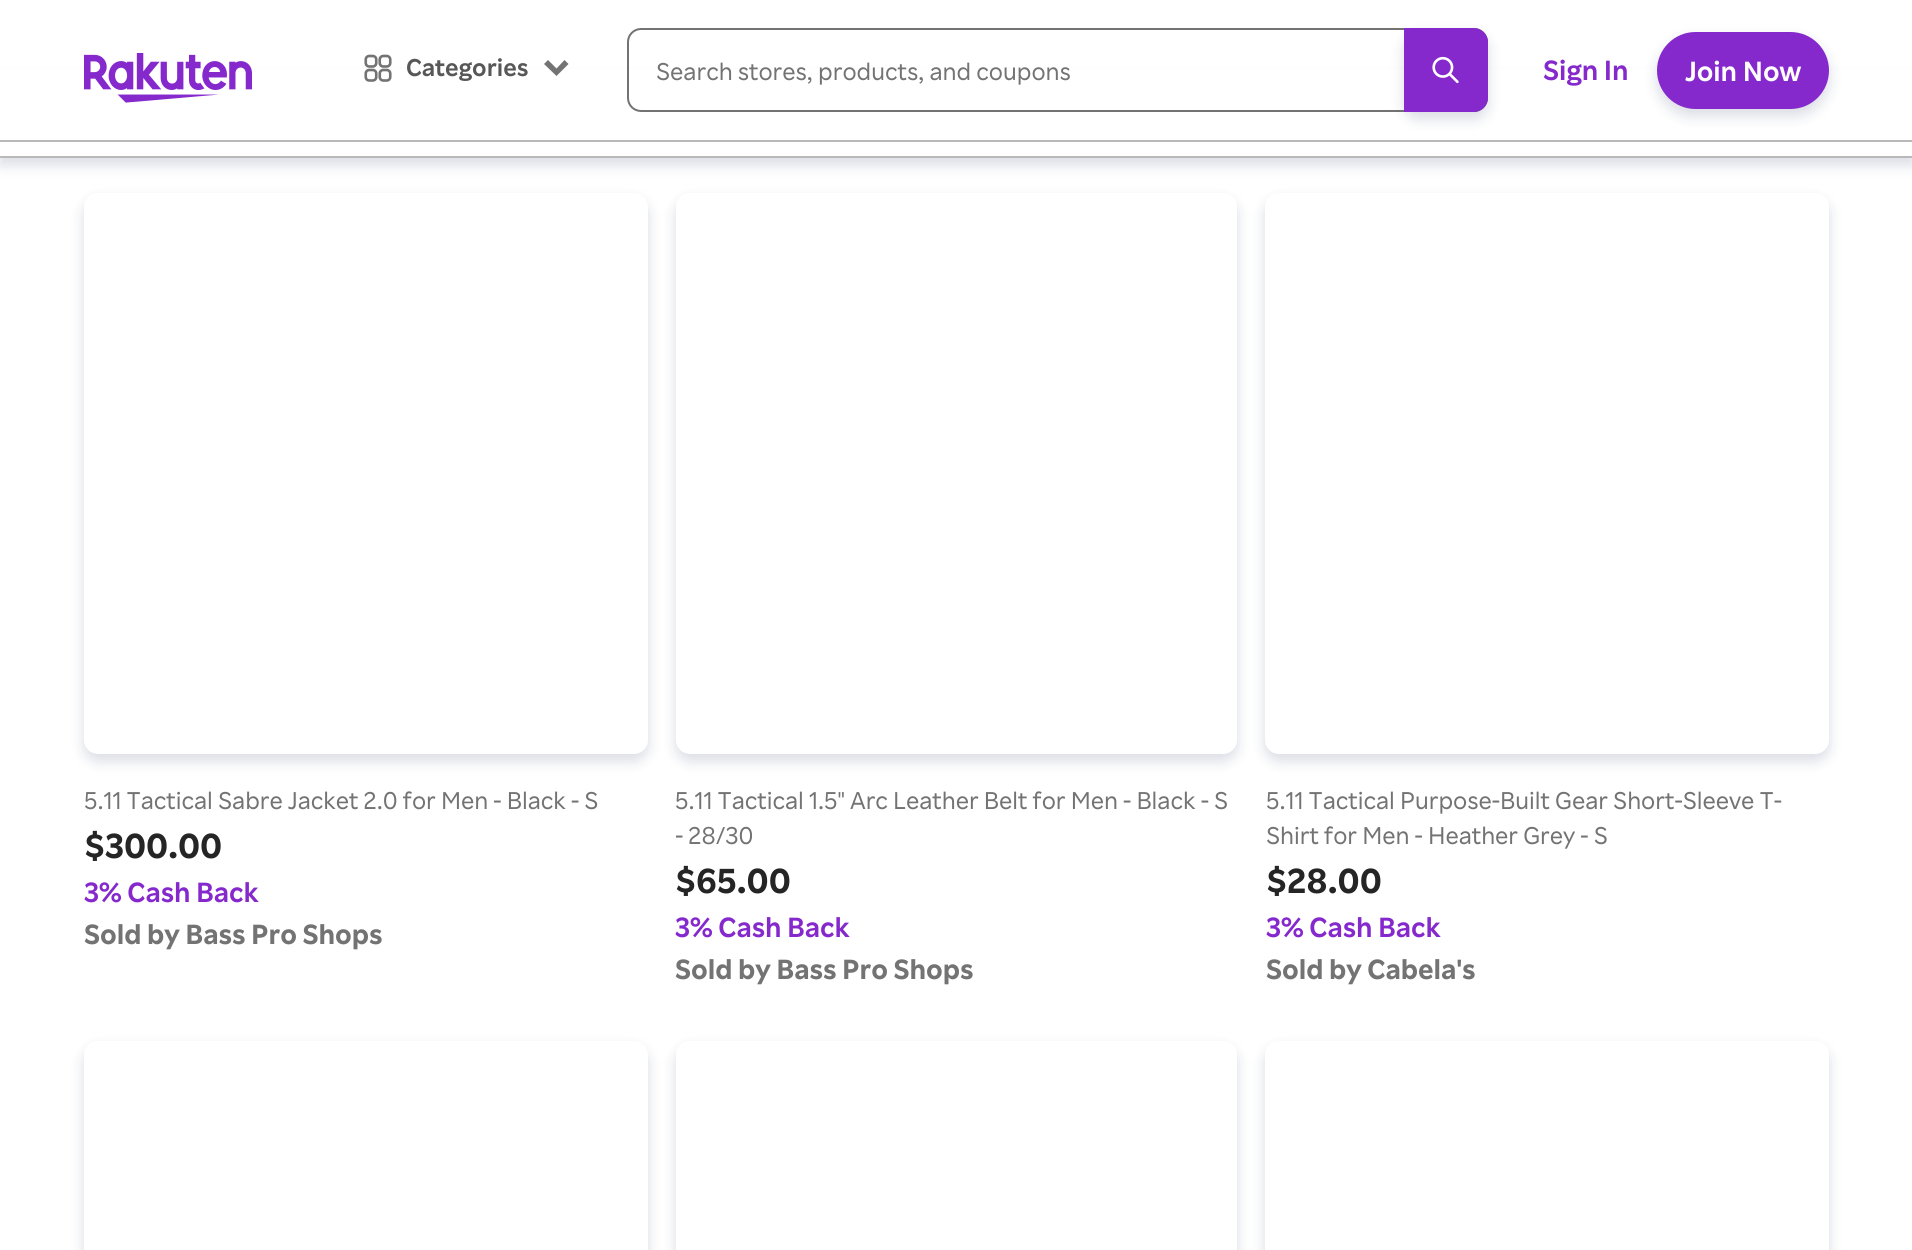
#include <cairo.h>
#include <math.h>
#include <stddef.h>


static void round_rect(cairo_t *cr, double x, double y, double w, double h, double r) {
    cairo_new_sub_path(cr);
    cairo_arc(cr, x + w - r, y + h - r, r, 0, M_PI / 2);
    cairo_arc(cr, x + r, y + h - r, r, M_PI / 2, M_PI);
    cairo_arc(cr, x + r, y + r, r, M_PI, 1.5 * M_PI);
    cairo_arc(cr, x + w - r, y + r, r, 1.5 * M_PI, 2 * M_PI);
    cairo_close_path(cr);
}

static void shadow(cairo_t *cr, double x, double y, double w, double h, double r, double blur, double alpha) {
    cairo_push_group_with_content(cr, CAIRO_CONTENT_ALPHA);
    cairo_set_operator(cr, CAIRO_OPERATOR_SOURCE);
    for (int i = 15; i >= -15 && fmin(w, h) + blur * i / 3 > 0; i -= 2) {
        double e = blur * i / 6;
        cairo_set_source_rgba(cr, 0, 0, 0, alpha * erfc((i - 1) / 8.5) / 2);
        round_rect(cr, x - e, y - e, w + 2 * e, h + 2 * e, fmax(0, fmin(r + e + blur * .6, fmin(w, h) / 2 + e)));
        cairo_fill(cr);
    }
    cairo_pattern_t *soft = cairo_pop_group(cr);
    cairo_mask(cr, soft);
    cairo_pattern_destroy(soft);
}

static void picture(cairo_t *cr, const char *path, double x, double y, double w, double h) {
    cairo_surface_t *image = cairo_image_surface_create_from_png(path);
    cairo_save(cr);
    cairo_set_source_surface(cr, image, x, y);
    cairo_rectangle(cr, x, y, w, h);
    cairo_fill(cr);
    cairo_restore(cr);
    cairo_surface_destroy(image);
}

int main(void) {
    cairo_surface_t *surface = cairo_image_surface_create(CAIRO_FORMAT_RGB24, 1912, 1250);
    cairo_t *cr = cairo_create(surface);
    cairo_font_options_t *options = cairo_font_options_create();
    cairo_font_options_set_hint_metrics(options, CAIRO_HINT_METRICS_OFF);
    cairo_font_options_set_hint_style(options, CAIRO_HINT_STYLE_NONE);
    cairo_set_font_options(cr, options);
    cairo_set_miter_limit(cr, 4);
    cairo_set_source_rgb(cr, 1, 1, 1);
    cairo_paint(cr);
    cairo_set_source_rgb(cr, 0.039, 0.086, 0.275);
    shadow(cr, 0, 79, 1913, 86, 0, 7, 0.15);
    cairo_set_source_rgb(cr, 1, 1, 1);
    cairo_rectangle(cr, 0, 142, 1912, 14);
    cairo_fill(cr);
    cairo_set_source_rgb(cr, 0.725, 0.725, 0.725);
    cairo_rectangle(cr, 0, 156, 1912, 2);
    cairo_fill(cr);
    cairo_set_source_rgb(cr, 1, 1, 1);
    cairo_rectangle(cr, 0, 69, 1912, 71);
    cairo_fill(cr);
    cairo_set_source_rgb(cr, 0.725, 0.725, 0.725);
    cairo_rectangle(cr, 0, 140, 1912, 2);
    cairo_fill(cr);
    picture(cr, "img1.png", 84, 53, 168, 50);
    picture(cr, "img2.png", 364, 54, 28, 28);
    cairo_select_font_face(cr, "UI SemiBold", CAIRO_FONT_SLANT_NORMAL, CAIRO_FONT_WEIGHT_NORMAL);
    cairo_set_font_size(cr, 24.5);
    cairo_set_source_rgb(cr, 0.341, 0.341, 0.341);
    cairo_move_to(cr, 406, 76);
    cairo_show_text(cr, "Categories");
    cairo_set_source_rgb(cr, 0.451, 0.451, 0.451);
    cairo_set_fill_rule(cr, CAIRO_FILL_RULE_EVEN_ODD);
    cairo_new_path(cr);
    cairo_move_to(cr, 556.5, 68.5);
    cairo_line_to(cr, 564.5, 60);
    cairo_line_to(cr, 568.5, 64);
    cairo_line_to(cr, 556.5, 76);
    cairo_line_to(cr, 544, 64);
    cairo_line_to(cr, 548, 60);
    cairo_close_path(cr);
    cairo_fill(cr);
    round_rect(cr, 628, 29, 859, 82, 13);
    cairo_stroke(cr);
    cairo_select_font_face(cr, "UI", CAIRO_FONT_SLANT_NORMAL, CAIRO_FONT_WEIGHT_NORMAL);
    cairo_move_to(cr, 656, 80);
    cairo_show_text(cr, "Search stores, products, and coupons");
    cairo_set_source_rgb(cr, 0.039, 0.086, 0.275);
    shadow(cr, 1404, 35, 84, 84, 14, 7, 0.15);
    cairo_set_source_rgb(cr, 0.522, 0.161, 0.804);
    cairo_new_path(cr);
    cairo_move_to(cr, 1404, 28);
    cairo_line_to(cr, 1474, 28);
    cairo_curve_to(cr, 1481.5, 28, 1488, 34.5, 1488, 42);
    cairo_line_to(cr, 1488, 98);
    cairo_curve_to(cr, 1488, 105.5, 1481.5, 112, 1474, 112);
    cairo_line_to(cr, 1404, 112);
    cairo_close_path(cr);
    cairo_fill(cr);
    picture(cr, "img3.png", 1432, 56, 27, 28);
    cairo_select_font_face(cr, "UI SemiBold", CAIRO_FONT_SLANT_NORMAL, CAIRO_FONT_WEIGHT_NORMAL);
    cairo_set_font_size(cr, 28);
    cairo_move_to(cr, 1543, 80);
    cairo_show_text(cr, "Sign In");
    cairo_set_source_rgb(cr, 0.039, 0.086, 0.275);
    shadow(cr, 1657, 39, 172, 77, 38.5, 7, 0.15);
    cairo_set_source_rgb(cr, 0.522, 0.161, 0.804);
    round_rect(cr, 1657, 32, 172, 77, 38.5);
    cairo_fill(cr);
    cairo_set_source_rgb(cr, 1, 1, 1);
    cairo_move_to(cr, 1685, 81);
    cairo_show_text(cr, "Join Now");
    cairo_set_source_rgb(cr, 0.039, 0.086, 0.275);
    shadow(cr, 84, 200, 564, 561, 14, 7, 0.15);
    cairo_set_source_rgb(cr, 1, 1, 1);
    round_rect(cr, 84, 193, 564, 561, 14);
    cairo_fill(cr);
    cairo_select_font_face(cr, "UI", CAIRO_FONT_SLANT_NORMAL, CAIRO_FONT_WEIGHT_NORMAL);
    cairo_set_font_size(cr, 24.5);
    cairo_set_source_rgb(cr, 0.451, 0.451, 0.451);
    cairo_move_to(cr, 84, 809);
    cairo_show_text(cr, "5.11 Tactical Sabre Jacket 2.0 for Men - Black - S");
    cairo_select_font_face(cr, "UI", CAIRO_FONT_SLANT_NORMAL, CAIRO_FONT_WEIGHT_BOLD);
    cairo_set_font_size(cr, 35);
    cairo_set_source_rgb(cr, 0.145, 0.145, 0.145);
    cairo_move_to(cr, 84, 858);
    cairo_show_text(cr, "$300.00");
    cairo_select_font_face(cr, "UI SemiBold", CAIRO_FONT_SLANT_NORMAL, CAIRO_FONT_WEIGHT_NORMAL);
    cairo_set_font_size(cr, 28);
    cairo_set_source_rgb(cr, 0.522, 0.161, 0.804);
    cairo_move_to(cr, 84, 902);
    cairo_show_text(cr, "3% Cash Back");
    cairo_select_font_face(cr, "UI", CAIRO_FONT_SLANT_NORMAL, CAIRO_FONT_WEIGHT_BOLD);
    cairo_set_source_rgb(cr, 0.451, 0.451, 0.451);
    cairo_move_to(cr, 84, 944);
    cairo_show_text(cr, "Sold by Bass Pro Shops");
    cairo_set_source_rgb(cr, 0.039, 0.086, 0.275);
    shadow(cr, 676, 200, 561, 561, 14, 7, 0.15);
    cairo_set_source_rgb(cr, 1, 1, 1);
    round_rect(cr, 676, 193, 561, 561, 14);
    cairo_fill(cr);
    cairo_select_font_face(cr, "UI", CAIRO_FONT_SLANT_NORMAL, CAIRO_FONT_WEIGHT_NORMAL);
    cairo_set_font_size(cr, 24.5);
    cairo_set_source_rgb(cr, 0.451, 0.451, 0.451);
    cairo_move_to(cr, 675, 809);
    cairo_show_text(cr, "5.11 Tactical 1.5\" Arc Leather Belt for Men - Black - S");
    cairo_save(cr);
    cairo_set_fill_rule(cr, CAIRO_FILL_RULE_WINDING);
    cairo_rectangle(cr, 676, 782, 561, 70);
    cairo_clip(cr);
    cairo_move_to(cr, 675, 844);
    cairo_show_text(cr, "- 28/30");
    cairo_restore(cr);
    cairo_select_font_face(cr, "UI", CAIRO_FONT_SLANT_NORMAL, CAIRO_FONT_WEIGHT_BOLD);
    cairo_set_font_size(cr, 35);
    cairo_set_source_rgb(cr, 0.145, 0.145, 0.145);
    cairo_move_to(cr, 675, 893);
    cairo_show_text(cr, "$65.00");
    cairo_select_font_face(cr, "UI SemiBold", CAIRO_FONT_SLANT_NORMAL, CAIRO_FONT_WEIGHT_NORMAL);
    cairo_set_font_size(cr, 28);
    cairo_set_source_rgb(cr, 0.522, 0.161, 0.804);
    cairo_move_to(cr, 675, 937);
    cairo_show_text(cr, "3% Cash Back");
    cairo_select_font_face(cr, "UI", CAIRO_FONT_SLANT_NORMAL, CAIRO_FONT_WEIGHT_BOLD);
    cairo_set_source_rgb(cr, 0.451, 0.451, 0.451);
    cairo_move_to(cr, 675, 979);
    cairo_show_text(cr, "Sold by Bass Pro Shops");
    cairo_set_source_rgb(cr, 0.039, 0.086, 0.275);
    shadow(cr, 1265, 200, 564, 561, 14, 7, 0.15);
    cairo_set_source_rgb(cr, 1, 1, 1);
    round_rect(cr, 1265, 193, 564, 561, 14);
    cairo_fill(cr);
    cairo_select_font_face(cr, "UI", CAIRO_FONT_SLANT_NORMAL, CAIRO_FONT_WEIGHT_NORMAL);
    cairo_set_font_size(cr, 24.5);
    cairo_set_source_rgb(cr, 0.451, 0.451, 0.451);
    cairo_move_to(cr, 1266, 809);
    cairo_show_text(cr, "5.11 Tactical Purpose-Built Gear Short-Sleeve T-");
    cairo_move_to(cr, 1266, 844);
    cairo_show_text(cr, "Shirt for Men - Heather Grey - S");
    cairo_select_font_face(cr, "UI", CAIRO_FONT_SLANT_NORMAL, CAIRO_FONT_WEIGHT_BOLD);
    cairo_set_font_size(cr, 35);
    cairo_set_source_rgb(cr, 0.145, 0.145, 0.145);
    cairo_move_to(cr, 1266, 893);
    cairo_show_text(cr, "$28.00");
    cairo_select_font_face(cr, "UI SemiBold", CAIRO_FONT_SLANT_NORMAL, CAIRO_FONT_WEIGHT_NORMAL);
    cairo_set_font_size(cr, 28);
    cairo_set_source_rgb(cr, 0.522, 0.161, 0.804);
    cairo_move_to(cr, 1266, 937);
    cairo_show_text(cr, "3% Cash Back");
    cairo_select_font_face(cr, "UI", CAIRO_FONT_SLANT_NORMAL, CAIRO_FONT_WEIGHT_BOLD);
    cairo_set_source_rgb(cr, 0.451, 0.451, 0.451);
    cairo_move_to(cr, 1266, 979);
    cairo_show_text(cr, "Sold by Cabela's");
    cairo_set_source_rgb(cr, 0.039, 0.086, 0.275);
    shadow(cr, 84, 1048, 564, 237, 14, 7, 0.15);
    cairo_set_source_rgb(cr, 1, 1, 1);
    round_rect(cr, 84, 1041, 564, 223, 14);
    cairo_fill(cr);
    cairo_set_source_rgb(cr, 0.039, 0.086, 0.275);
    shadow(cr, 676, 1048, 561, 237, 14, 7, 0.15);
    cairo_set_source_rgb(cr, 1, 1, 1);
    round_rect(cr, 676, 1041, 561, 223, 14);
    cairo_fill(cr);
    cairo_set_source_rgb(cr, 0.039, 0.086, 0.275);
    shadow(cr, 1265, 1048, 564, 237, 14, 7, 0.15);
    cairo_set_source_rgb(cr, 1, 1, 1);
    round_rect(cr, 1265, 1041, 564, 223, 14);
    cairo_fill(cr);
    cairo_surface_write_to_png(surface, "page.png");
    cairo_font_options_destroy(options);
    cairo_destroy(cr);
    cairo_surface_destroy(surface);
    return 0;
}
